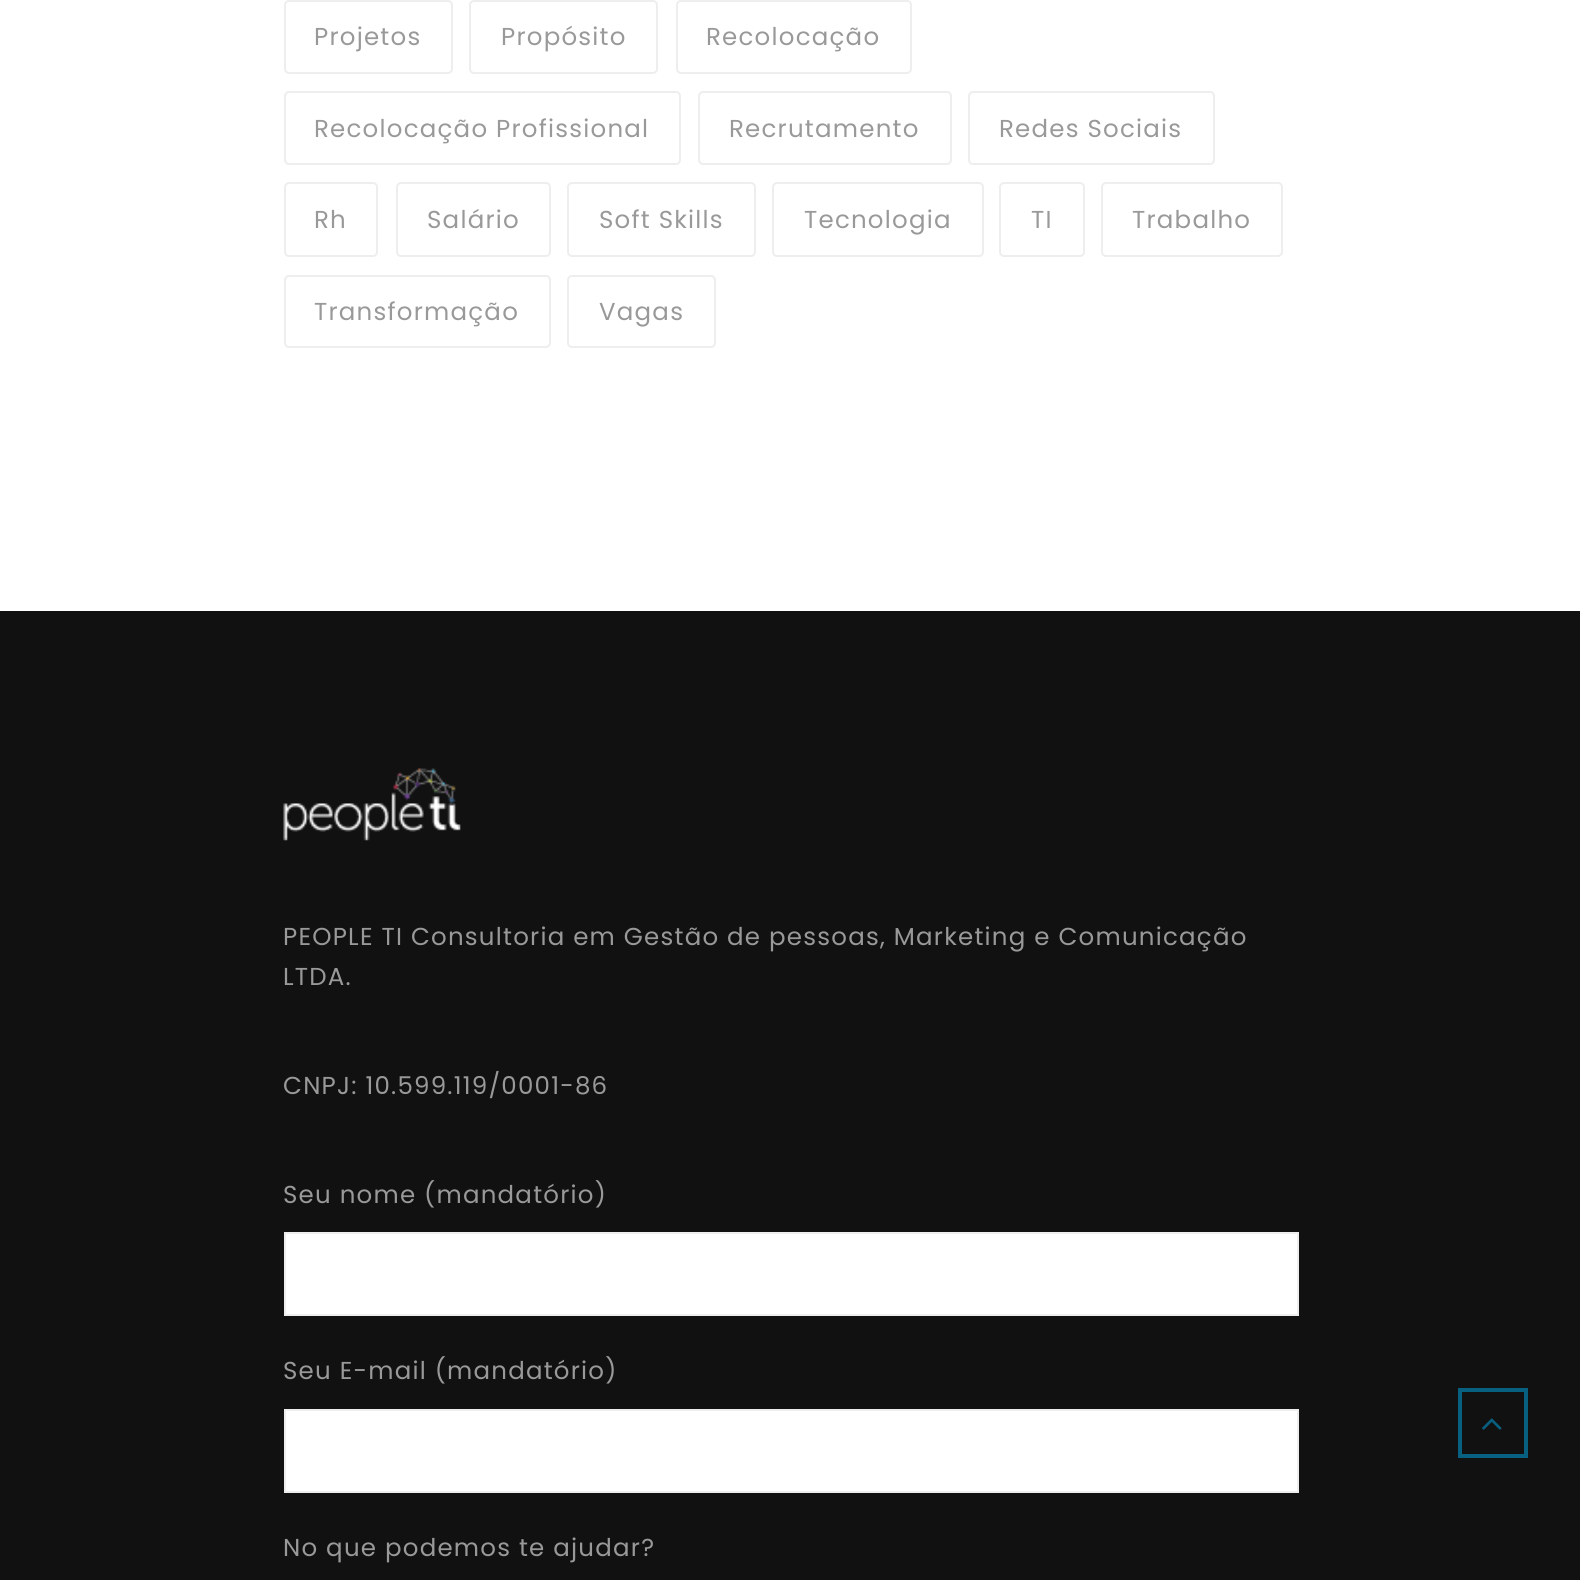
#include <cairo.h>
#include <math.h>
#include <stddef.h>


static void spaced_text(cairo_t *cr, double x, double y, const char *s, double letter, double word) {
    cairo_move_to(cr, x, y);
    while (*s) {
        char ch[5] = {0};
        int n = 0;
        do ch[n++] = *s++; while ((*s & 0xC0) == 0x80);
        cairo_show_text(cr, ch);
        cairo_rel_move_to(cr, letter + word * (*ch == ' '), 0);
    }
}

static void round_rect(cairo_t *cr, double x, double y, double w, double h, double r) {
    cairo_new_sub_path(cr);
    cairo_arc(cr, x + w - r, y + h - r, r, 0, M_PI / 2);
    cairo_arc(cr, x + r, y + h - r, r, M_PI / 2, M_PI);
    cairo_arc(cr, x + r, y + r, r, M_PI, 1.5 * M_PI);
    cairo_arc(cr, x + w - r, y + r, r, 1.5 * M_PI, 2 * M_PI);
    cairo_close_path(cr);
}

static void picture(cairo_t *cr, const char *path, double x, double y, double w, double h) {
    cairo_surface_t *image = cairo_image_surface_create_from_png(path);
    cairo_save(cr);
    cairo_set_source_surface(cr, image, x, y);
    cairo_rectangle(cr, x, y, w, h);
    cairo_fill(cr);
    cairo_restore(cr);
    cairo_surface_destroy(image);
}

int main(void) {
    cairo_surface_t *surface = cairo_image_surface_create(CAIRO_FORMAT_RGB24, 1580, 1580);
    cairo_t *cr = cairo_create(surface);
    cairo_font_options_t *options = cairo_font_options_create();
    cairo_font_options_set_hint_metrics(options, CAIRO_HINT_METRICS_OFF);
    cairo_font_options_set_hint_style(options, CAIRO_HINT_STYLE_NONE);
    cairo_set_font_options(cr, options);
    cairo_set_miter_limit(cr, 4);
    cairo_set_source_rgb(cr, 1, 1, 1);
    cairo_paint(cr);
    round_rect(cr, 285, 1, 167, 72, 4);
    cairo_set_source_rgb(cr, 0.933, 0.933, 0.933);
    cairo_stroke(cr);
    cairo_select_font_face(cr, "Poppins", CAIRO_FONT_SLANT_NORMAL, CAIRO_FONT_WEIGHT_NORMAL);
    cairo_set_font_size(cr, 24.5);
    cairo_set_source_rgb(cr, 0.6, 0.6, 0.6);
    spaced_text(cr, 314, 45, "Projetos", 1.22, 0);
    round_rect(cr, 470, 1, 187, 72, 4);
    cairo_set_source_rgb(cr, 0.933, 0.933, 0.933);
    cairo_stroke(cr);
    cairo_set_source_rgb(cr, 0.6, 0.6, 0.6);
    spaced_text(cr, 501, 45, "Propósito", 1.22, 0);
    round_rect(cr, 677, 1, 234, 72, 4);
    cairo_set_source_rgb(cr, 0.933, 0.933, 0.933);
    cairo_stroke(cr);
    cairo_set_source_rgb(cr, 0.6, 0.6, 0.6);
    spaced_text(cr, 706, 45, "Recolocação", 1.22, 0);
    round_rect(cr, 285, 92, 395, 72, 4);
    cairo_set_source_rgb(cr, 0.933, 0.933, 0.933);
    cairo_stroke(cr);
    cairo_set_source_rgb(cr, 0.6, 0.6, 0.6);
    spaced_text(cr, 314, 137, "Recolocação Profissional", 1.22, 0);
    round_rect(cr, 699, 92, 252, 72, 4);
    cairo_set_source_rgb(cr, 0.933, 0.933, 0.933);
    cairo_stroke(cr);
    cairo_set_source_rgb(cr, 0.6, 0.6, 0.6);
    spaced_text(cr, 729, 137, "Recrutamento", 1.22, 0);
    round_rect(cr, 969, 92, 245, 72, 4);
    cairo_set_source_rgb(cr, 0.933, 0.933, 0.933);
    cairo_stroke(cr);
    cairo_set_source_rgb(cr, 0.6, 0.6, 0.6);
    spaced_text(cr, 999, 137, "Redes Sociais", 1.22, 0);
    round_rect(cr, 285, 183, 92, 73, 4);
    cairo_set_source_rgb(cr, 0.933, 0.933, 0.933);
    cairo_stroke(cr);
    cairo_set_source_rgb(cr, 0.6, 0.6, 0.6);
    spaced_text(cr, 314, 228, "Rh", 1.22, 0);
    round_rect(cr, 397, 183, 153, 73, 4);
    cairo_set_source_rgb(cr, 0.933, 0.933, 0.933);
    cairo_stroke(cr);
    cairo_set_source_rgb(cr, 0.6, 0.6, 0.6);
    spaced_text(cr, 427, 228, "Salário", 1.22, 0);
    round_rect(cr, 568, 183, 187, 73, 4);
    cairo_set_source_rgb(cr, 0.933, 0.933, 0.933);
    cairo_stroke(cr);
    cairo_set_source_rgb(cr, 0.6, 0.6, 0.6);
    spaced_text(cr, 599, 228, "Soft Skills", 1.22, 0);
    round_rect(cr, 773, 183, 210, 73, 4);
    cairo_set_source_rgb(cr, 0.933, 0.933, 0.933);
    cairo_stroke(cr);
    cairo_set_source_rgb(cr, 0.6, 0.6, 0.6);
    spaced_text(cr, 804, 228, "Tecnologia", 1.22, 0);
    round_rect(cr, 1000, 183, 84, 73, 4);
    cairo_set_source_rgb(cr, 0.933, 0.933, 0.933);
    cairo_stroke(cr);
    cairo_set_source_rgb(cr, 0.6, 0.6, 0.6);
    spaced_text(cr, 1031, 228, "TI", 1.22, 0);
    round_rect(cr, 1102, 183, 180, 73, 4);
    cairo_set_source_rgb(cr, 0.933, 0.933, 0.933);
    cairo_stroke(cr);
    cairo_set_source_rgb(cr, 0.6, 0.6, 0.6);
    spaced_text(cr, 1132, 228, "Trabalho", 1.22, 0);
    round_rect(cr, 285, 276, 265, 71, 4);
    cairo_set_source_rgb(cr, 0.933, 0.933, 0.933);
    cairo_stroke(cr);
    cairo_set_source_rgb(cr, 0.6, 0.6, 0.6);
    spaced_text(cr, 314, 320, "Transformação", 1.22, 0);
    round_rect(cr, 568, 276, 147, 71, 4);
    cairo_set_source_rgb(cr, 0.933, 0.933, 0.933);
    cairo_stroke(cr);
    cairo_set_source_rgb(cr, 0.6, 0.6, 0.6);
    spaced_text(cr, 599, 320, "Vagas", 1.22, 0);
    cairo_set_source_rgb(cr, 0.067, 0.067, 0.067);
    cairo_rectangle(cr, 0, 611, 1580, 969);
    cairo_fill(cr);
    picture(cr, "img1.png", 283, 768, 178, 73);
    cairo_set_source_rgb(cr, 0.6, 0.6, 0.6);
    spaced_text(cr, 283, 945, "PEOPLE TI Consultoria em Gestão de pessoas, Marketing e Comunicação", 1.22, 0);
    spaced_text(cr, 283, 985, "LTDA.", 1.22, 0);
    spaced_text(cr, 283, 1094, "CNPJ: 10.599.119/0001-86", 1.22, 0);
    spaced_text(cr, 283, 1203, "Seu nome (mandatório)", 1.22, 0);
    cairo_set_source_rgb(cr, 1, 1, 1);
    cairo_rectangle(cr, 285, 1233, 1013, 82);
    cairo_fill_preserve(cr);
    cairo_set_source_rgb(cr, 0.933, 0.933, 0.933);
    cairo_stroke(cr);
    cairo_set_source_rgb(cr, 0.6, 0.6, 0.6);
    spaced_text(cr, 283, 1379, "Seu E-mail (mandatório)", 1.22, 0);
    cairo_set_source_rgb(cr, 1, 1, 1);
    cairo_rectangle(cr, 285, 1410, 1013, 82);
    cairo_fill_preserve(cr);
    cairo_set_source_rgb(cr, 0.933, 0.933, 0.933);
    cairo_stroke(cr);
    cairo_set_source_rgb(cr, 0.6, 0.6, 0.6);
    spaced_text(cr, 283, 1556, "No que podemos te ajudar?", 1.22, 0);
    cairo_rectangle(cr, 1460, 1390, 66, 66);
    cairo_set_source_rgb(cr, 0.035, 0.376, 0.502);
    cairo_set_line_width(cr, 4);
    cairo_stroke(cr);
    picture(cr, "img2.png", 1482, 1418, 20, 12);
    cairo_surface_write_to_png(surface, "page.png");
    cairo_font_options_destroy(options);
    cairo_destroy(cr);
    cairo_surface_destroy(surface);
    return 0;
}
